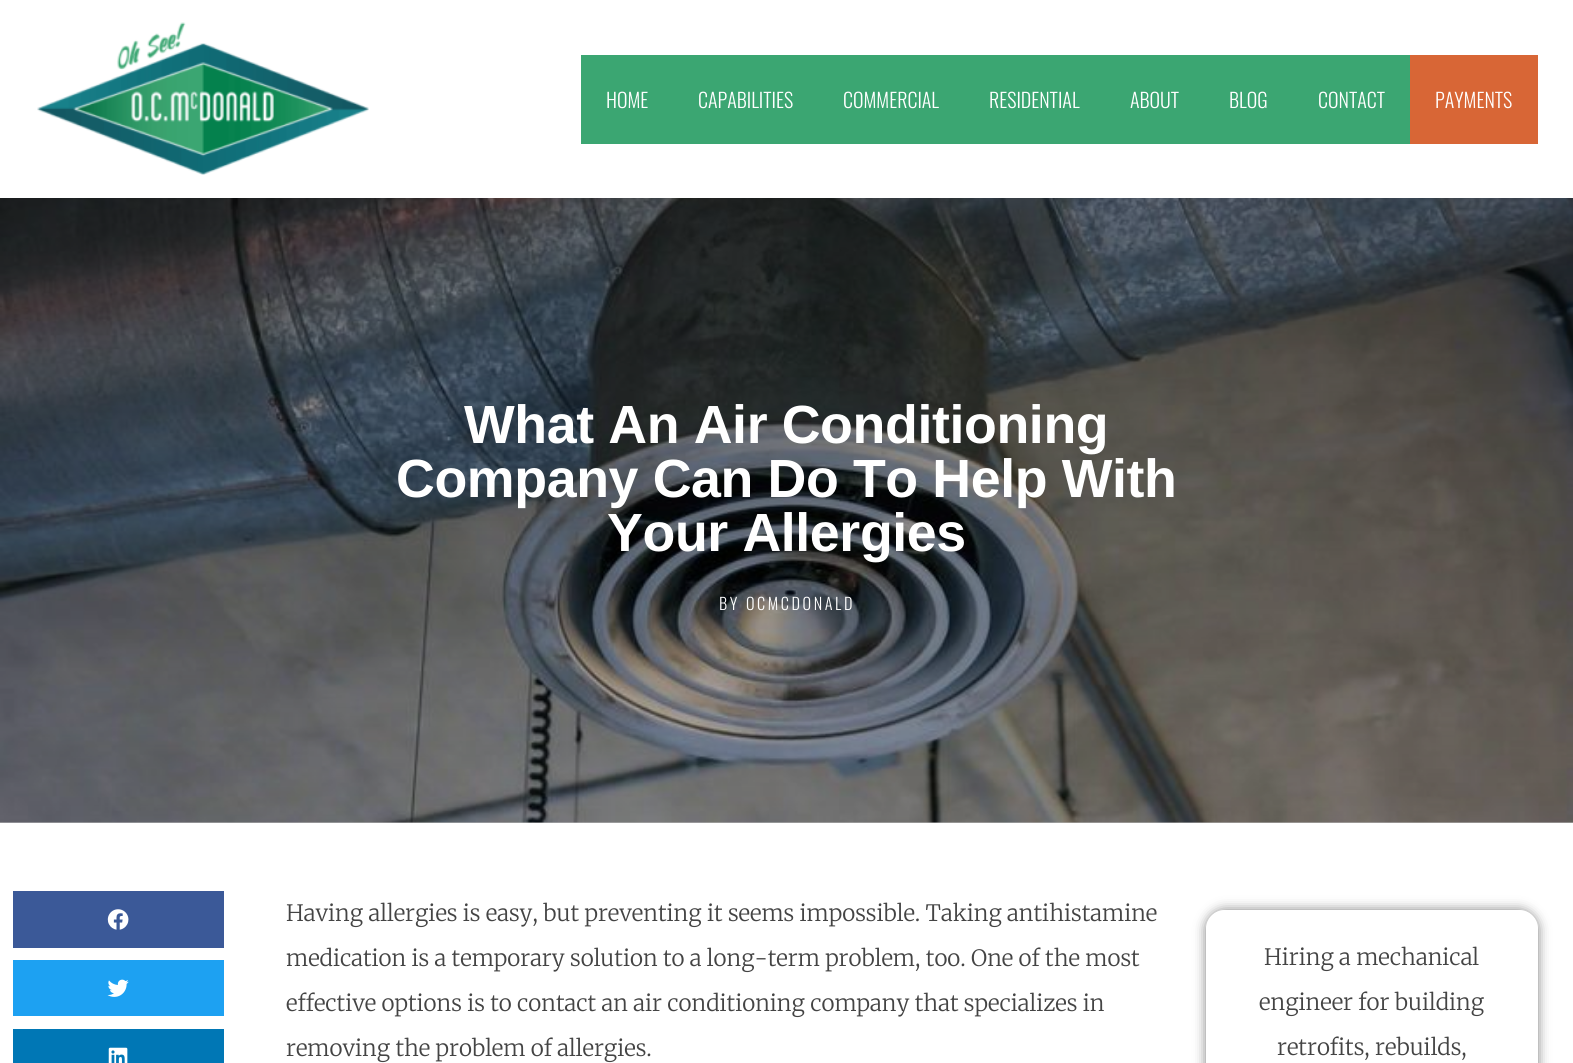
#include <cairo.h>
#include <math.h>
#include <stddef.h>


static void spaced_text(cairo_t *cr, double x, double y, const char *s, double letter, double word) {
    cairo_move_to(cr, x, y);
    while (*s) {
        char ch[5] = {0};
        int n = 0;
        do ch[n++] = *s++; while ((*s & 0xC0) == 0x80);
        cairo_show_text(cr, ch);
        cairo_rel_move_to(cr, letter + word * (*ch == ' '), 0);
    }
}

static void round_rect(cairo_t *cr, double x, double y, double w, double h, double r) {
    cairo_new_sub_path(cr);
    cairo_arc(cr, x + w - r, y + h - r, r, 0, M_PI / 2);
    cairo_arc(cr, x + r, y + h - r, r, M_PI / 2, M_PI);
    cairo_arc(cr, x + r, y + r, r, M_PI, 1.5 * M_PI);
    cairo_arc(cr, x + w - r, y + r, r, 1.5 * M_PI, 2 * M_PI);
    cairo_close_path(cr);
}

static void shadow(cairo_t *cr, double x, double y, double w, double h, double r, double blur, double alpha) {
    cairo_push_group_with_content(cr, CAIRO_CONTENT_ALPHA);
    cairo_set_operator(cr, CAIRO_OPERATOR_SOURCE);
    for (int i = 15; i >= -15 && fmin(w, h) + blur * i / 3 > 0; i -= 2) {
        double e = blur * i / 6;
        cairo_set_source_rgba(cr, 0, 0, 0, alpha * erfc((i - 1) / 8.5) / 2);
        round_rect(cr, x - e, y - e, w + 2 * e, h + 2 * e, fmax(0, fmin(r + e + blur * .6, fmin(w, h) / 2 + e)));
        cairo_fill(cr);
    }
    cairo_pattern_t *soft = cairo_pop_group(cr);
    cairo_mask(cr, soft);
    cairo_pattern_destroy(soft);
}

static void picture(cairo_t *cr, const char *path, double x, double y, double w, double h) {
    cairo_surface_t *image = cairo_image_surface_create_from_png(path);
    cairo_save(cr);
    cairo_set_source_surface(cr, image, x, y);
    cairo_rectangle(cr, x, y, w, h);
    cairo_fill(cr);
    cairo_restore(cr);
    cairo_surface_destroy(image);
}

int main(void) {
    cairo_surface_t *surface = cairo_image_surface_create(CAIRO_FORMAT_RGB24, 1573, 1063);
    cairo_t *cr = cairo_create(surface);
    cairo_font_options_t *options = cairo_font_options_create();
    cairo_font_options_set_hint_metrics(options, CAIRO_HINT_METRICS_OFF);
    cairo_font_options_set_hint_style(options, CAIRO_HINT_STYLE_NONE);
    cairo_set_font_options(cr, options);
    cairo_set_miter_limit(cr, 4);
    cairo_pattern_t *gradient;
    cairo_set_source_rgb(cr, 1, 1, 1);
    cairo_paint(cr);
    picture(cr, "img1.png", 37, 22, 332, 153);
    cairo_set_source_rgb(cr, 0.231, 0.651, 0.447);
    cairo_rectangle(cr, 581, 55, 829, 89);
    cairo_fill(cr);
    cairo_select_font_face(cr, "Oswald Light", CAIRO_FONT_SLANT_NORMAL, CAIRO_FONT_WEIGHT_NORMAL);
    cairo_set_font_size(cr, 20);
    cairo_set_source_rgb(cr, 1, 1, 1);
    cairo_move_to(cr, 606, 108);
    cairo_show_text(cr, "HOME");
    cairo_move_to(cr, 698, 108);
    cairo_show_text(cr, "CAPABILITIES");
    cairo_move_to(cr, 843, 108);
    cairo_show_text(cr, "COMMERCIAL");
    cairo_move_to(cr, 989, 108);
    cairo_show_text(cr, "RESIDENTIAL");
    cairo_move_to(cr, 1130, 108);
    cairo_show_text(cr, "ABOUT");
    cairo_move_to(cr, 1229, 108);
    cairo_show_text(cr, "BLOG");
    cairo_move_to(cr, 1318, 108);
    cairo_show_text(cr, "CONTACT");
    cairo_set_source_rgb(cr, 0.847, 0.4, 0.212);
    cairo_rectangle(cr, 1410, 55, 128, 89);
    cairo_fill(cr);
    cairo_set_source_rgb(cr, 1, 1, 1);
    cairo_move_to(cr, 1435, 108);
    cairo_show_text(cr, "PAYMENTS");
    picture(cr, "img2.png", 0, 198, 1573, 625);
    gradient = cairo_pattern_create_linear(787, 197, 787, 823);
    cairo_pattern_add_color_stop_rgba(gradient, 0, 0, 0, 0, 0.5);
    cairo_pattern_add_color_stop_rgba(gradient, 1, 0, 0, 0, 0.25);
    cairo_set_source(cr, gradient);
    cairo_pattern_destroy(gradient);
    cairo_rectangle(cr, 0, 198, 1573, 625);
    cairo_fill(cr);
    cairo_select_font_face(cr, "Liberation Sans", CAIRO_FONT_SLANT_NORMAL, CAIRO_FONT_WEIGHT_BOLD);
    cairo_set_font_size(cr, 53.75);
    cairo_set_source_rgb(cr, 1, 1, 1);
    spaced_text(cr, 464, 443, "What An Air Conditioning", -0.4, 0);
    spaced_text(cr, 396, 497, "Company Can Do To Help With", -0.4, 0);
    spaced_text(cr, 607, 551, "Your Allergies", -0.4, 0);
    cairo_select_font_face(cr, "Oswald Light", CAIRO_FONT_SLANT_NORMAL, CAIRO_FONT_WEIGHT_NORMAL);
    cairo_set_font_size(cr, 16.25);
    spaced_text(cr, 719, 610, "BY OCMCDONALD", 2.6, 0);
    cairo_set_source_rgb(cr, 0.231, 0.349, 0.596);
    cairo_rectangle(cr, 13, 891, 211, 57);
    cairo_fill(cr);
    picture(cr, "img3.png", 107, 909, 22, 21);
    cairo_set_source_rgb(cr, 0.114, 0.631, 0.949);
    cairo_rectangle(cr, 13, 960, 211, 56);
    cairo_fill(cr);
    picture(cr, "img4.png", 107, 979, 22, 18);
    cairo_set_source_rgb(cr, 0, 0.467, 0.71);
    cairo_rectangle(cr, 13, 1029, 211, 34);
    cairo_fill(cr);
    picture(cr, "img5.png", 108, 1047, 20, 16);
    cairo_select_font_face(cr, "Merriweather Light", CAIRO_FONT_SLANT_NORMAL, CAIRO_FONT_WEIGHT_NORMAL);
    cairo_set_font_size(cr, 22.5);
    cairo_set_source_rgb(cr, 0.267, 0.267, 0.267);
    cairo_move_to(cr, 286, 921);
    cairo_show_text(cr, "Having allergies is easy, but preventing it seems impossible. Taking antihistamine");
    cairo_move_to(cr, 286, 966);
    cairo_show_text(cr, "medication is a temporary solution to a long-term problem, too. One of the most");
    cairo_move_to(cr, 286, 1011);
    cairo_show_text(cr, "effective options is to contact an air conditioning company that specializes in");
    cairo_move_to(cr, 286, 1056);
    cairo_show_text(cr, "removing the problem of allergies.");
    cairo_save(cr);
    cairo_set_fill_rule(cr, CAIRO_FILL_RULE_EVEN_ODD);
    cairo_new_path(cr);
    cairo_move_to(cr, 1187, 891);
    cairo_line_to(cr, 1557, 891);
    cairo_line_to(cr, 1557, 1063);
    cairo_line_to(cr, 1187, 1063);
    cairo_close_path(cr);
    cairo_move_to(cr, 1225, 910);
    cairo_line_to(cr, 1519, 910);
    cairo_curve_to(cr, 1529.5, 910, 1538, 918.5, 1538, 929);
    cairo_line_to(cr, 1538, 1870);
    cairo_curve_to(cr, 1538, 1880.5, 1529.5, 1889, 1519, 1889);
    cairo_line_to(cr, 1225, 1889);
    cairo_curve_to(cr, 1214.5, 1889, 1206, 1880.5, 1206, 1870);
    cairo_line_to(cr, 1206, 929);
    cairo_curve_to(cr, 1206, 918.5, 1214.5, 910, 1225, 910);
    cairo_close_path(cr);
    cairo_clip(cr);
    cairo_set_source_rgb(cr, 0, 0, 0);
    shadow(cr, 1206, 910, 332, 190, 19, 6, 0.5);
    cairo_restore(cr);
    cairo_move_to(cr, 1264, 965);
    cairo_show_text(cr, "Hiring a mechanical");
    cairo_move_to(cr, 1259, 1010);
    cairo_show_text(cr, "engineer for building");
    cairo_move_to(cr, 1277, 1055);
    cairo_show_text(cr, "retrofits, rebuilds,");
    cairo_surface_write_to_png(surface, "page.png");
    cairo_font_options_destroy(options);
    cairo_destroy(cr);
    cairo_surface_destroy(surface);
    return 0;
}
